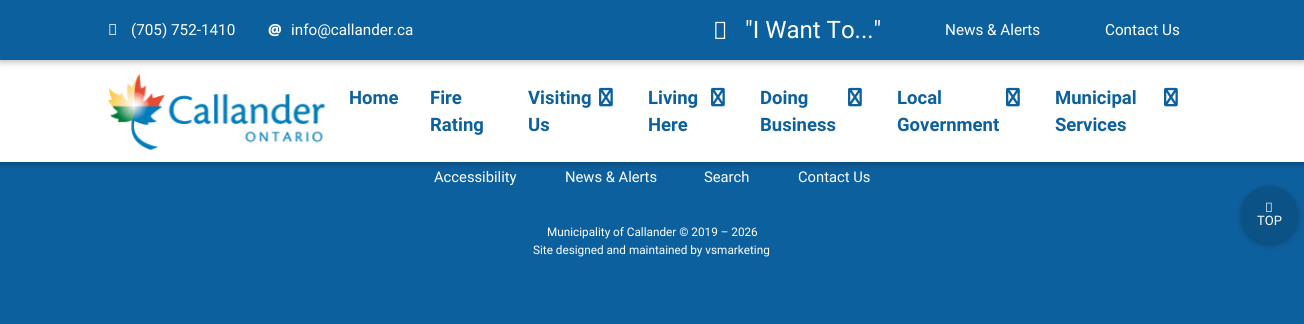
#include <cairo.h>
#include <math.h>
#include <stddef.h>


static void round_rect(cairo_t *cr, double x, double y, double w, double h, double r) {
    cairo_new_sub_path(cr);
    cairo_arc(cr, x + w - r, y + h - r, r, 0, M_PI / 2);
    cairo_arc(cr, x + r, y + h - r, r, M_PI / 2, M_PI);
    cairo_arc(cr, x + r, y + r, r, M_PI, 1.5 * M_PI);
    cairo_arc(cr, x + w - r, y + r, r, 1.5 * M_PI, 2 * M_PI);
    cairo_close_path(cr);
}

static void shadow(cairo_t *cr, double x, double y, double w, double h, double r, double blur, double alpha) {
    cairo_push_group_with_content(cr, CAIRO_CONTENT_ALPHA);
    cairo_set_operator(cr, CAIRO_OPERATOR_SOURCE);
    for (int i = 15; i >= -15 && fmin(w, h) + blur * i / 3 > 0; i -= 2) {
        double e = blur * i / 6;
        cairo_set_source_rgba(cr, 0, 0, 0, alpha * erfc((i - 1) / 8.5) / 2);
        round_rect(cr, x - e, y - e, w + 2 * e, h + 2 * e, fmax(0, fmin(r + e + blur * .6, fmin(w, h) / 2 + e)));
        cairo_fill(cr);
    }
    cairo_pattern_t *soft = cairo_pop_group(cr);
    cairo_mask(cr, soft);
    cairo_pattern_destroy(soft);
}

static void picture(cairo_t *cr, const char *path, double x, double y, double w, double h) {
    cairo_surface_t *image = cairo_image_surface_create_from_png(path);
    cairo_save(cr);
    cairo_set_source_surface(cr, image, x, y);
    cairo_rectangle(cr, x, y, w, h);
    cairo_fill(cr);
    cairo_restore(cr);
    cairo_surface_destroy(image);
}

int main(void) {
    cairo_surface_t *surface = cairo_image_surface_create(CAIRO_FORMAT_RGB24, 1304, 324);
    cairo_t *cr = cairo_create(surface);
    cairo_font_options_t *options = cairo_font_options_create();
    cairo_font_options_set_hint_metrics(options, CAIRO_HINT_METRICS_OFF);
    cairo_font_options_set_hint_style(options, CAIRO_HINT_STYLE_NONE);
    cairo_set_font_options(cr, options);
    cairo_set_miter_limit(cr, 4);
    cairo_set_source_rgb(cr, 0.051, 0.376, 0.62);
    cairo_paint(cr);
    cairo_set_source_rgb(cr, 0, 0, 0);
    shadow(cr, 0, 62, 1304, 102, 0, 5, 0.12);
    shadow(cr, 0, 62, 1304, 102, 0, 2.5, 0.16);
    cairo_set_source_rgb(cr, 1, 1, 1);
    cairo_rectangle(cr, 0, 60, 1304, 102);
    cairo_fill(cr);
    picture(cr, "img3.png", 108, 74, 218, 76);
    cairo_set_source_rgb(cr, 0, 0, 0);
    shadow(cr, 0, 2, 1304, 60, 0, 5, 0.12);
    shadow(cr, 0, 2, 1304, 60, 0, 2.5, 0.16);
    cairo_set_source_rgb(cr, 0.051, 0.376, 0.62);
    cairo_rectangle(cr, 0, 0, 1304, 60);
    cairo_fill(cr);
    picture(cr, "img1.png", 109, 24, 7, 11);
    cairo_select_font_face(cr, "Roboto", CAIRO_FONT_SLANT_NORMAL, CAIRO_FONT_WEIGHT_NORMAL);
    cairo_set_font_size(cr, 15.25);
    cairo_set_source_rgb(cr, 1, 1, 1);
    cairo_move_to(cr, 131, 35);
    cairo_show_text(cr, "(705) 752-1410");
    cairo_select_font_face(cr, "Noto Sans Black", CAIRO_FONT_SLANT_NORMAL, CAIRO_FONT_WEIGHT_NORMAL);
    cairo_move_to(cr, 268, 35);
    cairo_show_text(cr, "@");
    cairo_select_font_face(cr, "Roboto", CAIRO_FONT_SLANT_NORMAL, CAIRO_FONT_WEIGHT_NORMAL);
    cairo_move_to(cr, 291, 35);
    cairo_show_text(cr, "info@callander.ca");
    picture(cr, "img2.png", 715, 21, 11, 18);
    cairo_set_font_size(cr, 24);
    cairo_move_to(cr, 745, 38);
    cairo_show_text(cr, "\"I Want To...\"");
    cairo_set_font_size(cr, 15.25);
    cairo_move_to(cr, 945, 35);
    cairo_show_text(cr, "News & Alerts");
    cairo_move_to(cr, 1105, 35);
    cairo_show_text(cr, "Contact Us");
    cairo_select_font_face(cr, "Roboto", CAIRO_FONT_SLANT_NORMAL, CAIRO_FONT_WEIGHT_BOLD);
    cairo_set_font_size(cr, 18.5);
    cairo_set_source_rgb(cr, 0.051, 0.376, 0.62);
    cairo_move_to(cr, 349, 104);
    cairo_show_text(cr, "Home");
    cairo_move_to(cr, 430, 104);
    cairo_show_text(cr, "Fire");
    cairo_move_to(cr, 430, 131);
    cairo_show_text(cr, "Rating");
    cairo_move_to(cr, 528, 104);
    cairo_show_text(cr, "Visiting");
    cairo_move_to(cr, 528, 131);
    cairo_show_text(cr, "Us");
    picture(cr, "img4.png", 599, 87, 14, 20);
    cairo_move_to(cr, 648, 104);
    cairo_show_text(cr, "Living");
    cairo_move_to(cr, 648, 131);
    cairo_show_text(cr, "Here");
    picture(cr, "img4.png", 711, 87, 14, 20);
    cairo_move_to(cr, 760, 104);
    cairo_show_text(cr, "Doing");
    cairo_move_to(cr, 760, 131);
    cairo_show_text(cr, "Business");
    picture(cr, "img4.png", 848, 87, 14, 20);
    cairo_move_to(cr, 897, 104);
    cairo_show_text(cr, "Local");
    cairo_move_to(cr, 897, 131);
    cairo_show_text(cr, "Government");
    picture(cr, "img4.png", 1006, 87, 14, 20);
    cairo_move_to(cr, 1055, 104);
    cairo_show_text(cr, "Municipal");
    cairo_move_to(cr, 1055, 131);
    cairo_show_text(cr, "Services");
    picture(cr, "img4.png", 1164, 87, 14, 20);
    cairo_select_font_face(cr, "Roboto", CAIRO_FONT_SLANT_NORMAL, CAIRO_FONT_WEIGHT_NORMAL);
    cairo_set_font_size(cr, 14.75);
    cairo_set_source_rgb(cr, 1, 1, 1);
    cairo_move_to(cr, 434, 182);
    cairo_show_text(cr, "Accessibility");
    cairo_move_to(cr, 565, 182);
    cairo_show_text(cr, "News & Alerts");
    cairo_move_to(cr, 704, 182);
    cairo_show_text(cr, "Search");
    cairo_move_to(cr, 798, 182);
    cairo_show_text(cr, "Contact Us");
    cairo_set_font_size(cr, 11.75);
    cairo_move_to(cr, 547, 236);
    cairo_show_text(cr, "Municipality of Callander © 2019 – 2026");
    cairo_move_to(cr, 533, 254);
    cairo_show_text(cr, "Site designed and maintained by vsmarketing");
    cairo_set_source_rgb(cr, 0, 0, 0);
    shadow(cr, 1241, 188, 57, 57, 28.5, 5, 0.12);
    shadow(cr, 1241, 188, 57, 57, 28.5, 2.5, 0.16);
    cairo_set_source_rgb(cr, 0.043, 0.322, 0.525);
    cairo_arc(cr, 1269.5, 214.5, 28.5, 0, 2 * M_PI);
    cairo_fill(cr);
    picture(cr, "img5.png", 1266, 202, 6, 10);
    cairo_set_font_size(cr, 13);
    cairo_set_source_rgb(cr, 1, 1, 1);
    cairo_move_to(cr, 1257, 225);
    cairo_show_text(cr, "TOP");
    cairo_surface_write_to_png(surface, "page.png");
    cairo_font_options_destroy(options);
    cairo_destroy(cr);
    cairo_surface_destroy(surface);
    return 0;
}
